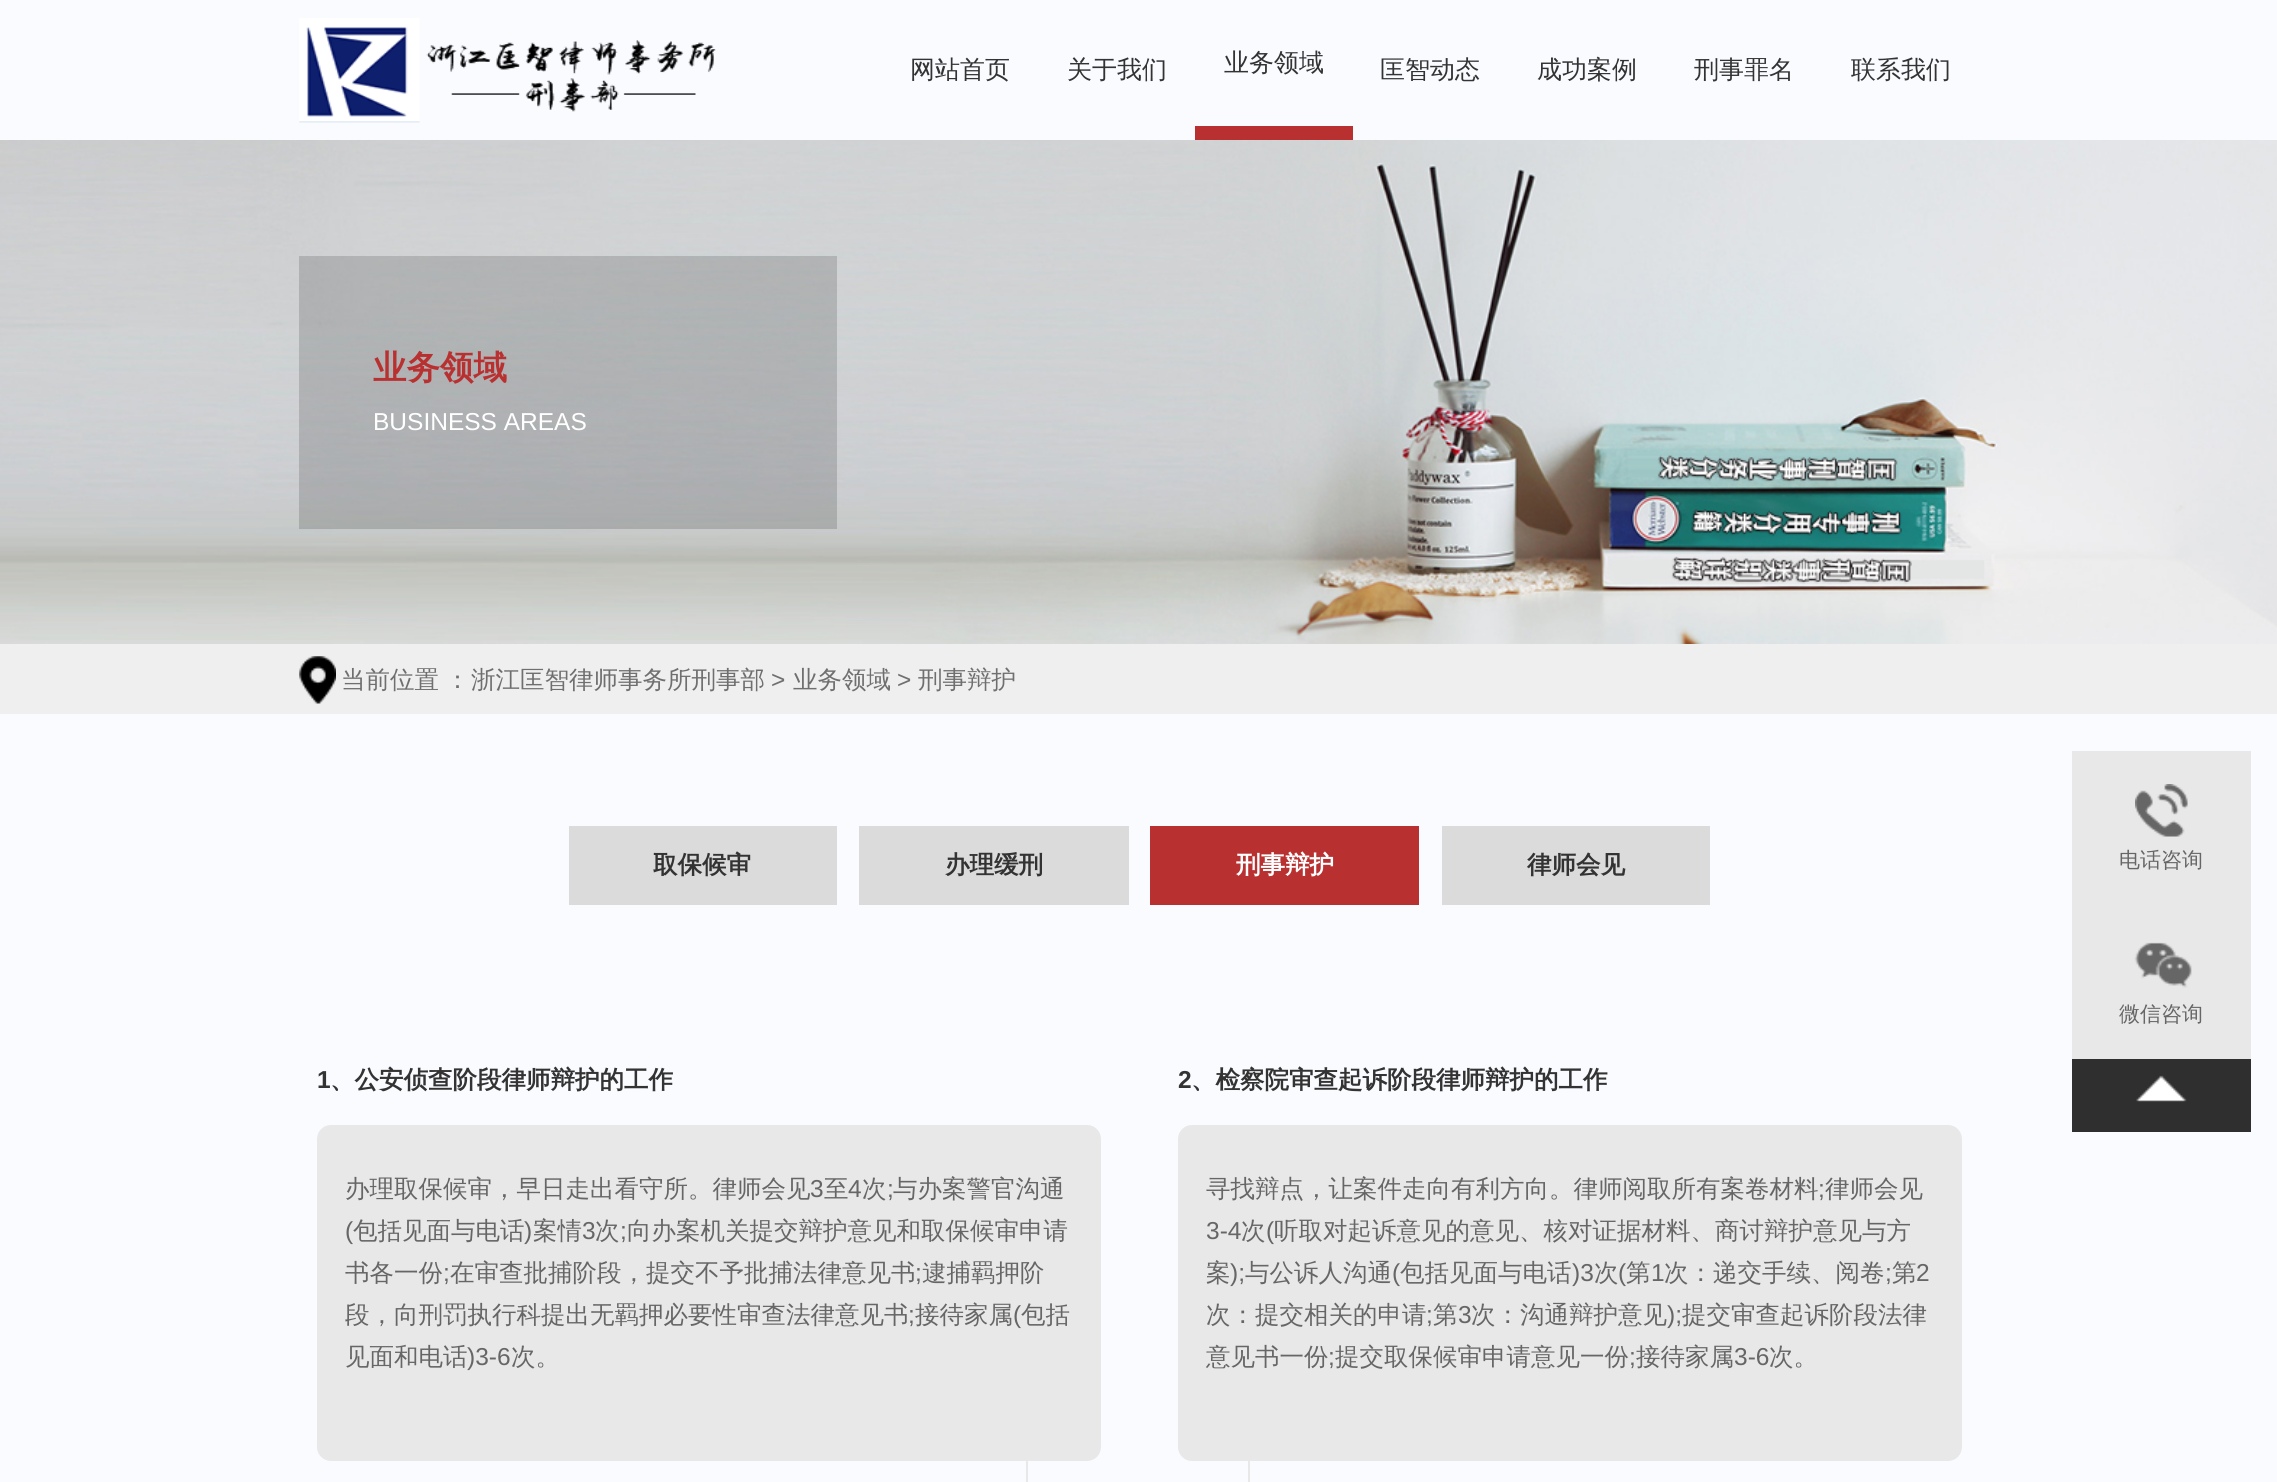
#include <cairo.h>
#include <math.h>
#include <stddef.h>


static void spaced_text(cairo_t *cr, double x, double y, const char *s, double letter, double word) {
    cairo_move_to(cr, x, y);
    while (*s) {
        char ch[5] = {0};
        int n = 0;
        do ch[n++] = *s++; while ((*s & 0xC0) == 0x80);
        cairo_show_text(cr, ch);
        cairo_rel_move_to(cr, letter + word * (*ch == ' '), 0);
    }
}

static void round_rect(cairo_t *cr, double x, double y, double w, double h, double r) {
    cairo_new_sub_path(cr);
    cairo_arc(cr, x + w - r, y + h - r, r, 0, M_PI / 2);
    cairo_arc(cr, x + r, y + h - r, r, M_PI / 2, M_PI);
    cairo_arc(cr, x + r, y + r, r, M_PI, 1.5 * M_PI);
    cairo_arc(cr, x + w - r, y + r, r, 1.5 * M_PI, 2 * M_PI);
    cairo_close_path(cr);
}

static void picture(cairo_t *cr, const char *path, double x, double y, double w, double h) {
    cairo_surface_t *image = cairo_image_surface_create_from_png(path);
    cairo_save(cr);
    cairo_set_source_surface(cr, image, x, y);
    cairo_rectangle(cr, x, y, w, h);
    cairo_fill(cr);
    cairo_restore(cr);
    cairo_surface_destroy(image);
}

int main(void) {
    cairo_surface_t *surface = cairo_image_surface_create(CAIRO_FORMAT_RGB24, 2277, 1482);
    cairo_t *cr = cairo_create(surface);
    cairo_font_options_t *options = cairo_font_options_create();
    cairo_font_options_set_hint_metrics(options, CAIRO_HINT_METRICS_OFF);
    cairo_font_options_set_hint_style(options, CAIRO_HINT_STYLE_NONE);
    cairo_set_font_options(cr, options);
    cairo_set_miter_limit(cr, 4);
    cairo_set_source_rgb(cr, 0.976, 0.984, 1);
    cairo_paint(cr);
    picture(cr, "img1.png", 299, 18, 417, 105);
    cairo_select_font_face(cr, "WenQuanYi Zen Hei Medium", CAIRO_FONT_SLANT_NORMAL, CAIRO_FONT_WEIGHT_NORMAL);
    cairo_set_font_size(cr, 25);
    cairo_set_source_rgb(cr, 0.2, 0.2, 0.2);
    cairo_move_to(cr, 910, 78);
    cairo_show_text(cr, "网站首页");
    cairo_move_to(cr, 1067, 78);
    cairo_show_text(cr, "关于我们");
    cairo_set_source_rgb(cr, 0.725, 0.188, 0.192);
    cairo_rectangle(cr, 1195, 126, 158, 14);
    cairo_fill(cr);
    cairo_set_source_rgb(cr, 0.2, 0.2, 0.2);
    cairo_move_to(cr, 1224, 71);
    cairo_show_text(cr, "业务领域");
    cairo_move_to(cr, 1380, 78);
    cairo_show_text(cr, "匡智动态");
    cairo_move_to(cr, 1537, 78);
    cairo_show_text(cr, "成功案例");
    cairo_move_to(cr, 1694, 78);
    cairo_show_text(cr, "刑事罪名");
    cairo_move_to(cr, 1851, 78);
    cairo_show_text(cr, "联系我们");
    picture(cr, "img2.png", 0, 140, 2277, 504);
    cairo_set_source_rgba(cr, 0, 0, 0, 0.15);
    cairo_rectangle(cr, 299, 256, 538, 273);
    cairo_fill(cr);
    cairo_select_font_face(cr, "WenQuanYi Zen Hei", CAIRO_FONT_SLANT_NORMAL, CAIRO_FONT_WEIGHT_BOLD);
    cairo_set_font_size(cr, 33.5);
    cairo_set_source_rgb(cr, 0.725, 0.188, 0.192);
    cairo_move_to(cr, 373, 379);
    cairo_show_text(cr, "业务领域");
    cairo_select_font_face(cr, "Liberation Sans", CAIRO_FONT_SLANT_NORMAL, CAIRO_FONT_WEIGHT_NORMAL);
    cairo_set_font_size(cr, 24.5);
    cairo_set_source_rgb(cr, 1, 1, 1);
    cairo_move_to(cr, 373, 430);
    cairo_show_text(cr, "BUSINESS AREAS");
    cairo_set_source_rgb(cr, 0.937, 0.937, 0.937);
    cairo_rectangle(cr, 0, 644, 2277, 70);
    cairo_fill(cr);
    picture(cr, "img3.png", 299, 656, 37, 48);
    cairo_select_font_face(cr, "WenQuanYi Zen Hei Medium", CAIRO_FONT_SLANT_NORMAL, CAIRO_FONT_WEIGHT_NORMAL);
    cairo_set_source_rgb(cr, 0.435, 0.435, 0.435);
    spaced_text(cr, 341, 688, "当前位置 ：", 0, -1);
    cairo_move_to(cr, 471, 688);
    cairo_show_text(cr, "浙江匡智律师事务所刑事部");
    cairo_select_font_face(cr, "Liberation Sans", CAIRO_FONT_SLANT_NORMAL, CAIRO_FONT_WEIGHT_NORMAL);
    cairo_move_to(cr, 771, 688);
    cairo_show_text(cr, ">");
    cairo_select_font_face(cr, "WenQuanYi Zen Hei Medium", CAIRO_FONT_SLANT_NORMAL, CAIRO_FONT_WEIGHT_NORMAL);
    cairo_move_to(cr, 793, 688);
    cairo_show_text(cr, "业务领域");
    cairo_select_font_face(cr, "Liberation Sans", CAIRO_FONT_SLANT_NORMAL, CAIRO_FONT_WEIGHT_NORMAL);
    cairo_move_to(cr, 897, 688);
    cairo_show_text(cr, ">");
    cairo_select_font_face(cr, "WenQuanYi Zen Hei Medium", CAIRO_FONT_SLANT_NORMAL, CAIRO_FONT_WEIGHT_NORMAL);
    cairo_move_to(cr, 918, 688);
    cairo_show_text(cr, "刑事辩护");
    cairo_set_source_rgb(cr, 0.859, 0.859, 0.859);
    cairo_rectangle(cr, 569, 826, 268, 79);
    cairo_fill(cr);
    cairo_select_font_face(cr, "WenQuanYi Zen Hei", CAIRO_FONT_SLANT_NORMAL, CAIRO_FONT_WEIGHT_BOLD);
    cairo_set_source_rgb(cr, 0.2, 0.2, 0.2);
    cairo_move_to(cr, 653, 873);
    cairo_show_text(cr, "取保候审");
    cairo_set_source_rgb(cr, 0.859, 0.859, 0.859);
    cairo_rectangle(cr, 859, 826, 270, 79);
    cairo_fill(cr);
    cairo_set_source_rgb(cr, 0.2, 0.2, 0.2);
    cairo_move_to(cr, 945, 873);
    cairo_show_text(cr, "办理缓刑");
    cairo_set_source_rgb(cr, 0.725, 0.188, 0.192);
    cairo_rectangle(cr, 1150, 826, 269, 79);
    cairo_fill(cr);
    cairo_set_source_rgb(cr, 1, 1, 1);
    cairo_move_to(cr, 1236, 873);
    cairo_show_text(cr, "刑事辩护");
    cairo_set_source_rgb(cr, 0.859, 0.859, 0.859);
    cairo_rectangle(cr, 1442, 826, 268, 79);
    cairo_fill(cr);
    cairo_set_source_rgb(cr, 0.2, 0.2, 0.2);
    cairo_move_to(cr, 1527, 873);
    cairo_show_text(cr, "律师会见");
    cairo_select_font_face(cr, "Liberation Sans", CAIRO_FONT_SLANT_NORMAL, CAIRO_FONT_WEIGHT_BOLD);
    cairo_move_to(cr, 317, 1088);
    cairo_show_text(cr, "1");
    cairo_select_font_face(cr, "WenQuanYi Zen Hei", CAIRO_FONT_SLANT_NORMAL, CAIRO_FONT_WEIGHT_BOLD);
    cairo_move_to(cr, 330, 1088);
    cairo_show_text(cr, "、公安侦查阶段律师辩护的工作");
    cairo_set_source_rgb(cr, 0.91, 0.91, 0.91);
    round_rect(cr, 317, 1125, 784, 336, 14);
    cairo_fill(cr);
    cairo_select_font_face(cr, "WenQuanYi Zen Hei Medium", CAIRO_FONT_SLANT_NORMAL, CAIRO_FONT_WEIGHT_NORMAL);
    cairo_set_source_rgb(cr, 0.4, 0.4, 0.4);
    cairo_move_to(cr, 345, 1197);
    cairo_show_text(cr, "办理取保候审，早日走出看守所。律师会见");
    cairo_select_font_face(cr, "Liberation Sans", CAIRO_FONT_SLANT_NORMAL, CAIRO_FONT_WEIGHT_NORMAL);
    cairo_move_to(cr, 810, 1197);
    cairo_show_text(cr, "3");
    cairo_select_font_face(cr, "WenQuanYi Zen Hei Medium", CAIRO_FONT_SLANT_NORMAL, CAIRO_FONT_WEIGHT_NORMAL);
    cairo_move_to(cr, 824, 1197);
    cairo_show_text(cr, "至");
    cairo_select_font_face(cr, "Liberation Sans", CAIRO_FONT_SLANT_NORMAL, CAIRO_FONT_WEIGHT_NORMAL);
    cairo_move_to(cr, 848, 1197);
    cairo_show_text(cr, "4");
    cairo_select_font_face(cr, "WenQuanYi Zen Hei Medium", CAIRO_FONT_SLANT_NORMAL, CAIRO_FONT_WEIGHT_NORMAL);
    cairo_move_to(cr, 862, 1197);
    cairo_show_text(cr, "次");
    cairo_select_font_face(cr, "Liberation Sans", CAIRO_FONT_SLANT_NORMAL, CAIRO_FONT_WEIGHT_NORMAL);
    cairo_move_to(cr, 887, 1197);
    cairo_show_text(cr, ";");
    cairo_select_font_face(cr, "WenQuanYi Zen Hei Medium", CAIRO_FONT_SLANT_NORMAL, CAIRO_FONT_WEIGHT_NORMAL);
    cairo_move_to(cr, 893, 1197);
    cairo_show_text(cr, "与办案警官沟通");
    cairo_select_font_face(cr, "Liberation Sans", CAIRO_FONT_SLANT_NORMAL, CAIRO_FONT_WEIGHT_NORMAL);
    cairo_move_to(cr, 345, 1239);
    cairo_show_text(cr, "(");
    cairo_select_font_face(cr, "WenQuanYi Zen Hei Medium", CAIRO_FONT_SLANT_NORMAL, CAIRO_FONT_WEIGHT_NORMAL);
    cairo_move_to(cr, 353, 1239);
    cairo_show_text(cr, "包括见面与电话");
    cairo_select_font_face(cr, "Liberation Sans", CAIRO_FONT_SLANT_NORMAL, CAIRO_FONT_WEIGHT_NORMAL);
    cairo_move_to(cr, 524, 1239);
    cairo_show_text(cr, ")");
    cairo_select_font_face(cr, "WenQuanYi Zen Hei Medium", CAIRO_FONT_SLANT_NORMAL, CAIRO_FONT_WEIGHT_NORMAL);
    cairo_move_to(cr, 533, 1239);
    cairo_show_text(cr, "案情");
    cairo_select_font_face(cr, "Liberation Sans", CAIRO_FONT_SLANT_NORMAL, CAIRO_FONT_WEIGHT_NORMAL);
    cairo_move_to(cr, 582, 1239);
    cairo_show_text(cr, "3");
    cairo_select_font_face(cr, "WenQuanYi Zen Hei Medium", CAIRO_FONT_SLANT_NORMAL, CAIRO_FONT_WEIGHT_NORMAL);
    cairo_move_to(cr, 595, 1239);
    cairo_show_text(cr, "次");
    cairo_select_font_face(cr, "Liberation Sans", CAIRO_FONT_SLANT_NORMAL, CAIRO_FONT_WEIGHT_NORMAL);
    cairo_move_to(cr, 620, 1239);
    cairo_show_text(cr, ";");
    cairo_select_font_face(cr, "WenQuanYi Zen Hei Medium", CAIRO_FONT_SLANT_NORMAL, CAIRO_FONT_WEIGHT_NORMAL);
    cairo_move_to(cr, 627, 1239);
    cairo_show_text(cr, "向办案机关提交辩护意见和取保候审申请");
    cairo_move_to(cr, 345, 1281);
    cairo_show_text(cr, "书各一份");
    cairo_select_font_face(cr, "Liberation Sans", CAIRO_FONT_SLANT_NORMAL, CAIRO_FONT_WEIGHT_NORMAL);
    cairo_move_to(cr, 443, 1281);
    cairo_show_text(cr, ";");
    cairo_select_font_face(cr, "WenQuanYi Zen Hei Medium", CAIRO_FONT_SLANT_NORMAL, CAIRO_FONT_WEIGHT_NORMAL);
    cairo_move_to(cr, 450, 1281);
    cairo_show_text(cr, "在审查批捕阶段，提交不予批捕法律意见书");
    cairo_select_font_face(cr, "Liberation Sans", CAIRO_FONT_SLANT_NORMAL, CAIRO_FONT_WEIGHT_NORMAL);
    cairo_move_to(cr, 915, 1281);
    cairo_show_text(cr, ";");
    cairo_select_font_face(cr, "WenQuanYi Zen Hei Medium", CAIRO_FONT_SLANT_NORMAL, CAIRO_FONT_WEIGHT_NORMAL);
    cairo_move_to(cr, 922, 1281);
    cairo_show_text(cr, "逮捕羁押阶");
    cairo_move_to(cr, 345, 1323);
    cairo_show_text(cr, "段，向刑罚执行科提出无羁押必要性审查法律意见书");
    cairo_select_font_face(cr, "Liberation Sans", CAIRO_FONT_SLANT_NORMAL, CAIRO_FONT_WEIGHT_NORMAL);
    cairo_move_to(cr, 908, 1323);
    cairo_show_text(cr, ";");
    cairo_select_font_face(cr, "WenQuanYi Zen Hei Medium", CAIRO_FONT_SLANT_NORMAL, CAIRO_FONT_WEIGHT_NORMAL);
    cairo_move_to(cr, 915, 1323);
    cairo_show_text(cr, "接待家属");
    cairo_select_font_face(cr, "Liberation Sans", CAIRO_FONT_SLANT_NORMAL, CAIRO_FONT_WEIGHT_NORMAL);
    cairo_move_to(cr, 1013, 1323);
    cairo_show_text(cr, "(");
    cairo_select_font_face(cr, "WenQuanYi Zen Hei Medium", CAIRO_FONT_SLANT_NORMAL, CAIRO_FONT_WEIGHT_NORMAL);
    cairo_move_to(cr, 1021, 1323);
    cairo_show_text(cr, "包括");
    cairo_move_to(cr, 345, 1365);
    cairo_show_text(cr, "见面和电话");
    cairo_select_font_face(cr, "Liberation Sans", CAIRO_FONT_SLANT_NORMAL, CAIRO_FONT_WEIGHT_NORMAL);
    cairo_move_to(cr, 467, 1365);
    cairo_show_text(cr, ")3-6");
    cairo_select_font_face(cr, "WenQuanYi Zen Hei Medium", CAIRO_FONT_SLANT_NORMAL, CAIRO_FONT_WEIGHT_NORMAL);
    cairo_move_to(cr, 511, 1365);
    cairo_show_text(cr, "次。");
    cairo_select_font_face(cr, "Liberation Sans", CAIRO_FONT_SLANT_NORMAL, CAIRO_FONT_WEIGHT_BOLD);
    cairo_set_source_rgb(cr, 0.2, 0.2, 0.2);
    cairo_move_to(cr, 1178, 1088);
    cairo_show_text(cr, "2");
    cairo_select_font_face(cr, "WenQuanYi Zen Hei", CAIRO_FONT_SLANT_NORMAL, CAIRO_FONT_WEIGHT_BOLD);
    cairo_move_to(cr, 1191, 1088);
    cairo_show_text(cr, "、检察院审查起诉阶段律师辩护的工作");
    cairo_set_source_rgb(cr, 0.91, 0.91, 0.91);
    round_rect(cr, 1178, 1125, 784, 336, 14);
    cairo_fill(cr);
    cairo_select_font_face(cr, "WenQuanYi Zen Hei Medium", CAIRO_FONT_SLANT_NORMAL, CAIRO_FONT_WEIGHT_NORMAL);
    cairo_set_source_rgb(cr, 0.4, 0.4, 0.4);
    cairo_move_to(cr, 1206, 1197);
    cairo_show_text(cr, "寻找辩点，让案件走向有利方向。律师阅取所有案卷材料");
    cairo_select_font_face(cr, "Liberation Sans", CAIRO_FONT_SLANT_NORMAL, CAIRO_FONT_WEIGHT_NORMAL);
    cairo_move_to(cr, 1818, 1197);
    cairo_show_text(cr, ";");
    cairo_select_font_face(cr, "WenQuanYi Zen Hei Medium", CAIRO_FONT_SLANT_NORMAL, CAIRO_FONT_WEIGHT_NORMAL);
    cairo_move_to(cr, 1825, 1197);
    cairo_show_text(cr, "律师会见");
    cairo_select_font_face(cr, "Liberation Sans", CAIRO_FONT_SLANT_NORMAL, CAIRO_FONT_WEIGHT_NORMAL);
    cairo_move_to(cr, 1206, 1239);
    cairo_show_text(cr, "3-4");
    cairo_select_font_face(cr, "WenQuanYi Zen Hei Medium", CAIRO_FONT_SLANT_NORMAL, CAIRO_FONT_WEIGHT_NORMAL);
    cairo_move_to(cr, 1241, 1239);
    cairo_show_text(cr, "次");
    cairo_select_font_face(cr, "Liberation Sans", CAIRO_FONT_SLANT_NORMAL, CAIRO_FONT_WEIGHT_NORMAL);
    cairo_move_to(cr, 1266, 1239);
    cairo_show_text(cr, "(");
    cairo_select_font_face(cr, "WenQuanYi Zen Hei Medium", CAIRO_FONT_SLANT_NORMAL, CAIRO_FONT_WEIGHT_NORMAL);
    cairo_move_to(cr, 1274, 1239);
    cairo_show_text(cr, "听取对起诉意见的意见、核对证据材料、商讨辩护意见与方");
    cairo_move_to(cr, 1206, 1281);
    cairo_show_text(cr, "案");
    cairo_select_font_face(cr, "Liberation Sans", CAIRO_FONT_SLANT_NORMAL, CAIRO_FONT_WEIGHT_NORMAL);
    cairo_move_to(cr, 1230, 1281);
    cairo_show_text(cr, ");");
    cairo_select_font_face(cr, "WenQuanYi Zen Hei Medium", CAIRO_FONT_SLANT_NORMAL, CAIRO_FONT_WEIGHT_NORMAL);
    cairo_move_to(cr, 1245, 1281);
    cairo_show_text(cr, "与公诉人沟通");
    cairo_select_font_face(cr, "Liberation Sans", CAIRO_FONT_SLANT_NORMAL, CAIRO_FONT_WEIGHT_NORMAL);
    cairo_move_to(cr, 1392, 1281);
    cairo_show_text(cr, "(");
    cairo_select_font_face(cr, "WenQuanYi Zen Hei Medium", CAIRO_FONT_SLANT_NORMAL, CAIRO_FONT_WEIGHT_NORMAL);
    cairo_move_to(cr, 1400, 1281);
    cairo_show_text(cr, "包括见面与电话");
    cairo_select_font_face(cr, "Liberation Sans", CAIRO_FONT_SLANT_NORMAL, CAIRO_FONT_WEIGHT_NORMAL);
    cairo_move_to(cr, 1572, 1281);
    cairo_show_text(cr, ")3");
    cairo_select_font_face(cr, "WenQuanYi Zen Hei Medium", CAIRO_FONT_SLANT_NORMAL, CAIRO_FONT_WEIGHT_NORMAL);
    cairo_move_to(cr, 1594, 1281);
    cairo_show_text(cr, "次");
    cairo_select_font_face(cr, "Liberation Sans", CAIRO_FONT_SLANT_NORMAL, CAIRO_FONT_WEIGHT_NORMAL);
    cairo_move_to(cr, 1618, 1281);
    cairo_show_text(cr, "(");
    cairo_select_font_face(cr, "WenQuanYi Zen Hei Medium", CAIRO_FONT_SLANT_NORMAL, CAIRO_FONT_WEIGHT_NORMAL);
    cairo_move_to(cr, 1626, 1281);
    cairo_show_text(cr, "第");
    cairo_select_font_face(cr, "Liberation Sans", CAIRO_FONT_SLANT_NORMAL, CAIRO_FONT_WEIGHT_NORMAL);
    cairo_move_to(cr, 1651, 1281);
    cairo_show_text(cr, "1");
    cairo_select_font_face(cr, "WenQuanYi Zen Hei Medium", CAIRO_FONT_SLANT_NORMAL, CAIRO_FONT_WEIGHT_NORMAL);
    cairo_move_to(cr, 1664, 1281);
    cairo_show_text(cr, "次：递交手续、阅卷");
    cairo_select_font_face(cr, "Liberation Sans", CAIRO_FONT_SLANT_NORMAL, CAIRO_FONT_WEIGHT_NORMAL);
    cairo_move_to(cr, 1885, 1281);
    cairo_show_text(cr, ";");
    cairo_select_font_face(cr, "WenQuanYi Zen Hei Medium", CAIRO_FONT_SLANT_NORMAL, CAIRO_FONT_WEIGHT_NORMAL);
    cairo_move_to(cr, 1892, 1281);
    cairo_show_text(cr, "第");
    cairo_select_font_face(cr, "Liberation Sans", CAIRO_FONT_SLANT_NORMAL, CAIRO_FONT_WEIGHT_NORMAL);
    cairo_move_to(cr, 1916, 1281);
    cairo_show_text(cr, "2");
    cairo_select_font_face(cr, "WenQuanYi Zen Hei Medium", CAIRO_FONT_SLANT_NORMAL, CAIRO_FONT_WEIGHT_NORMAL);
    cairo_move_to(cr, 1206, 1323);
    cairo_show_text(cr, "次：提交相关的申请");
    cairo_select_font_face(cr, "Liberation Sans", CAIRO_FONT_SLANT_NORMAL, CAIRO_FONT_WEIGHT_NORMAL);
    cairo_move_to(cr, 1426, 1323);
    cairo_show_text(cr, ";");
    cairo_select_font_face(cr, "WenQuanYi Zen Hei Medium", CAIRO_FONT_SLANT_NORMAL, CAIRO_FONT_WEIGHT_NORMAL);
    cairo_move_to(cr, 1433, 1323);
    cairo_show_text(cr, "第");
    cairo_select_font_face(cr, "Liberation Sans", CAIRO_FONT_SLANT_NORMAL, CAIRO_FONT_WEIGHT_NORMAL);
    cairo_move_to(cr, 1458, 1323);
    cairo_show_text(cr, "3");
    cairo_select_font_face(cr, "WenQuanYi Zen Hei Medium", CAIRO_FONT_SLANT_NORMAL, CAIRO_FONT_WEIGHT_NORMAL);
    cairo_move_to(cr, 1471, 1323);
    cairo_show_text(cr, "次：沟通辩护意见");
    cairo_select_font_face(cr, "Liberation Sans", CAIRO_FONT_SLANT_NORMAL, CAIRO_FONT_WEIGHT_NORMAL);
    cairo_move_to(cr, 1667, 1323);
    cairo_show_text(cr, ");");
    cairo_select_font_face(cr, "WenQuanYi Zen Hei Medium", CAIRO_FONT_SLANT_NORMAL, CAIRO_FONT_WEIGHT_NORMAL);
    cairo_move_to(cr, 1682, 1323);
    cairo_show_text(cr, "提交审查起诉阶段法律");
    cairo_move_to(cr, 1206, 1365);
    cairo_show_text(cr, "意见书一份");
    cairo_select_font_face(cr, "Liberation Sans", CAIRO_FONT_SLANT_NORMAL, CAIRO_FONT_WEIGHT_NORMAL);
    cairo_move_to(cr, 1328, 1365);
    cairo_show_text(cr, ";");
    cairo_select_font_face(cr, "WenQuanYi Zen Hei Medium", CAIRO_FONT_SLANT_NORMAL, CAIRO_FONT_WEIGHT_NORMAL);
    cairo_move_to(cr, 1335, 1365);
    cairo_show_text(cr, "提交取保候审申请意见一份");
    cairo_select_font_face(cr, "Liberation Sans", CAIRO_FONT_SLANT_NORMAL, CAIRO_FONT_WEIGHT_NORMAL);
    cairo_move_to(cr, 1629, 1365);
    cairo_show_text(cr, ";");
    cairo_select_font_face(cr, "WenQuanYi Zen Hei Medium", CAIRO_FONT_SLANT_NORMAL, CAIRO_FONT_WEIGHT_NORMAL);
    cairo_move_to(cr, 1636, 1365);
    cairo_show_text(cr, "接待家属");
    cairo_select_font_face(cr, "Liberation Sans", CAIRO_FONT_SLANT_NORMAL, CAIRO_FONT_WEIGHT_NORMAL);
    cairo_move_to(cr, 1734, 1365);
    cairo_show_text(cr, "3-6");
    cairo_select_font_face(cr, "WenQuanYi Zen Hei Medium", CAIRO_FONT_SLANT_NORMAL, CAIRO_FONT_WEIGHT_NORMAL);
    cairo_move_to(cr, 1769, 1365);
    cairo_show_text(cr, "次。");
    cairo_set_source_rgb(cr, 0.91, 0.91, 0.91);
    cairo_rectangle(cr, 1248, 1461, 2, 21);
    cairo_fill(cr);
    cairo_rectangle(cr, 1026, 1461, 2, 21);
    cairo_fill(cr);
    cairo_rectangle(cr, 2072, 751, 179, 308);
    cairo_fill(cr);
    picture(cr, "img4.png", 2135, 784, 53, 53);
    cairo_set_font_size(cr, 21);
    cairo_set_source_rgb(cr, 0.4, 0.4, 0.4);
    cairo_move_to(cr, 2119, 867);
    cairo_show_text(cr, "电话咨询");
    picture(cr, "img5.png", 2134, 942, 58, 46);
    cairo_move_to(cr, 2119, 1021);
    cairo_show_text(cr, "微信咨询");
    cairo_set_source_rgb(cr, 0.184, 0.184, 0.184);
    cairo_rectangle(cr, 2072, 1059, 179, 73);
    cairo_fill(cr);
    picture(cr, "img6.png", 2136, 1075, 51, 27);
    cairo_surface_write_to_png(surface, "page.png");
    cairo_font_options_destroy(options);
    cairo_destroy(cr);
    cairo_surface_destroy(surface);
    return 0;
}
